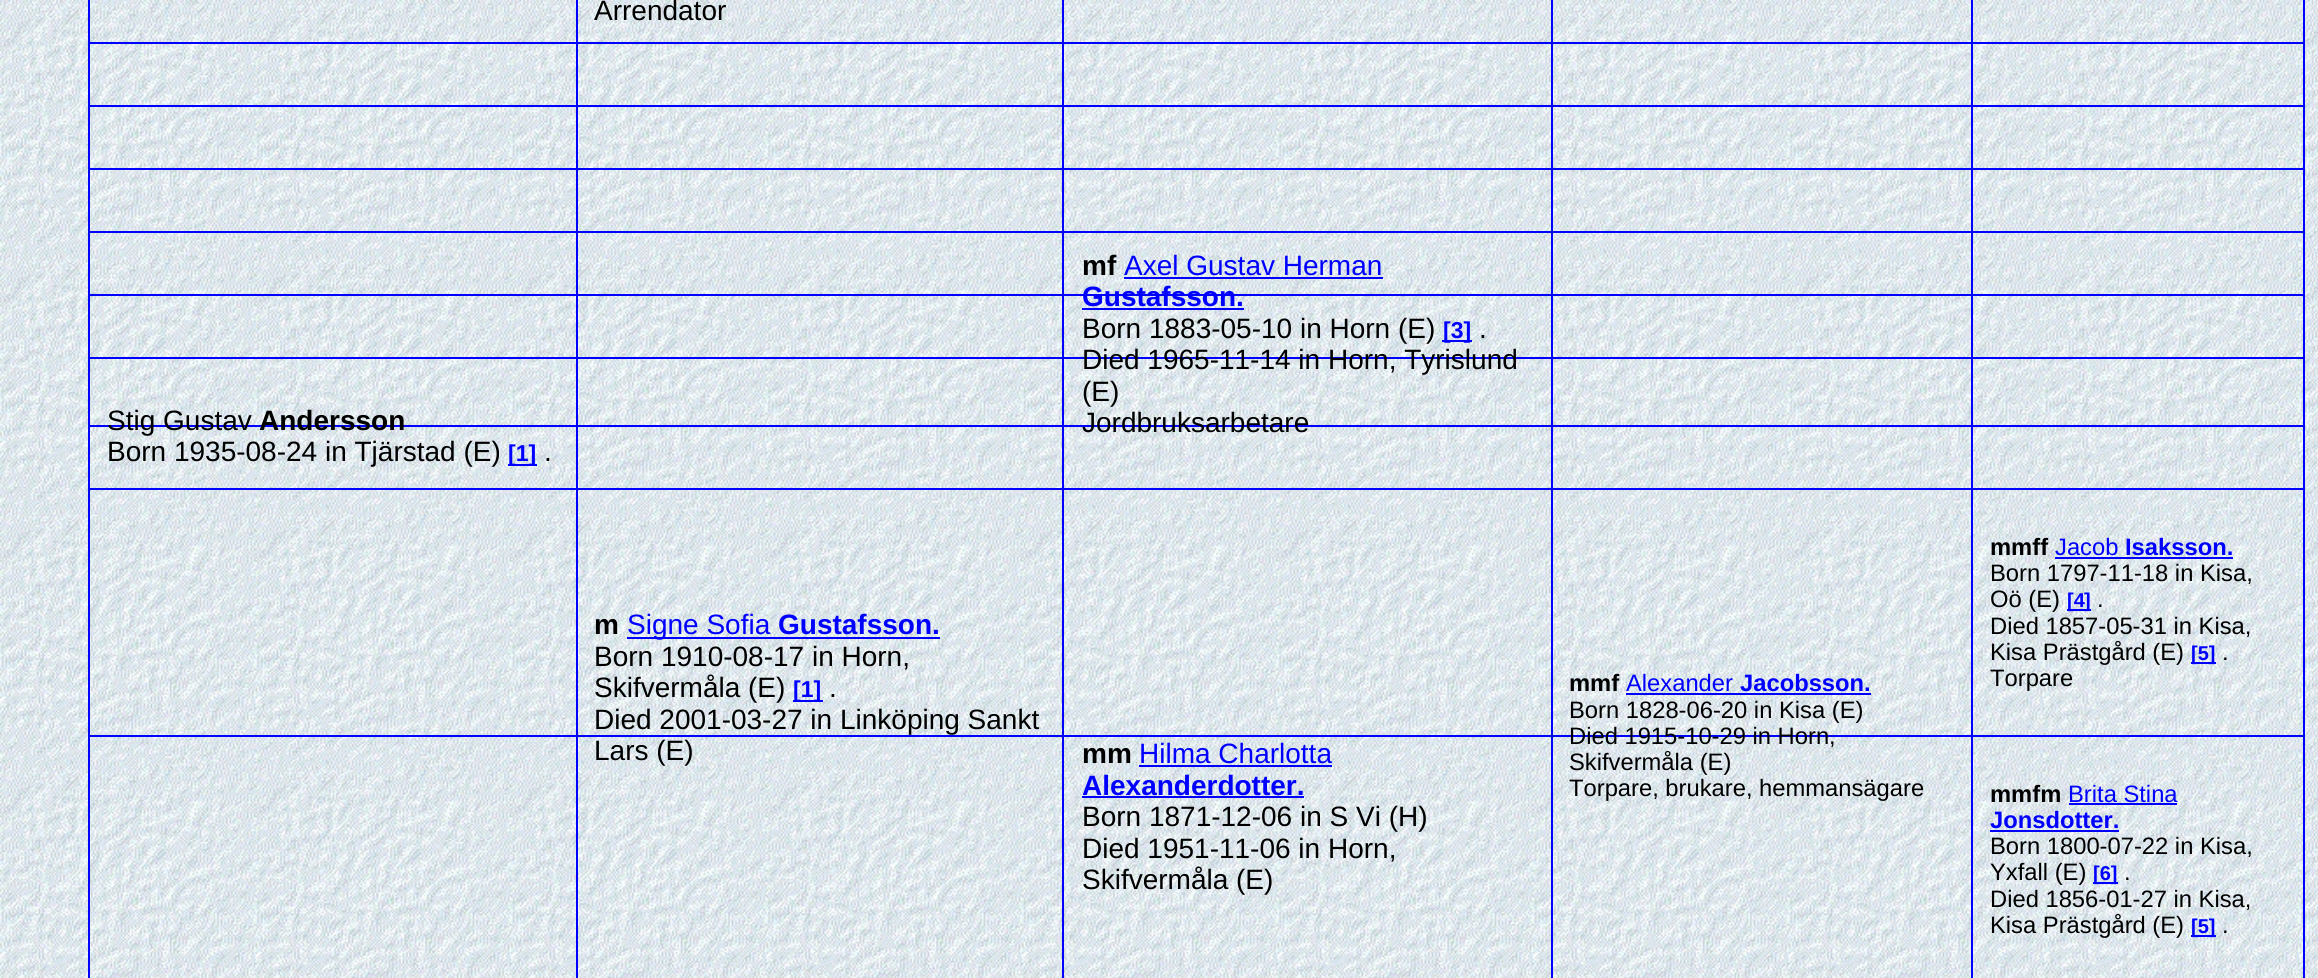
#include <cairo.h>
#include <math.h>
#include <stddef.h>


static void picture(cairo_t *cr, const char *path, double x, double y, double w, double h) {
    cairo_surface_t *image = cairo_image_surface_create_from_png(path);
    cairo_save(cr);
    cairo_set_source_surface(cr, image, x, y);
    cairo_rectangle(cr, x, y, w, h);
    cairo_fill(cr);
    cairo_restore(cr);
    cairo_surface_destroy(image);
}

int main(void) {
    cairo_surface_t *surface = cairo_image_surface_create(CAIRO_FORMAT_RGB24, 2318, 978);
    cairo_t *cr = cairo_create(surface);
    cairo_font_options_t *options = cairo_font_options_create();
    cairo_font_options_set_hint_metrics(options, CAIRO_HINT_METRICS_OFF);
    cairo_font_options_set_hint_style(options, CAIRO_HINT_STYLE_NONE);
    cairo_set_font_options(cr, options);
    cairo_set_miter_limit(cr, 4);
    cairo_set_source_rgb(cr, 1, 1, 1);
    cairo_paint(cr);
    picture(cr, "img1.png", 0, 0, 2318, 978);
    cairo_set_source_rgb(cr, 0, 0, 1);
    cairo_rectangle(cr, 2303, 0, 2, 978);
    cairo_fill(cr);
    cairo_rectangle(cr, 88, 0, 2, 978);
    cairo_fill(cr);
    cairo_select_font_face(cr, "Liberation Sans", CAIRO_FONT_SLANT_NORMAL, CAIRO_FONT_WEIGHT_NORMAL);
    cairo_set_font_size(cr, 28);
    cairo_set_source_rgb(cr, 0, 0, 0);
    cairo_move_to(cr, 594, 20);
    cairo_show_text(cr, "Arrendator");
    cairo_set_source_rgb(cr, 0, 0, 1);
    cairo_rectangle(cr, 88, 425, 2217, 2);
    cairo_fill(cr);
    cairo_set_source_rgb(cr, 0, 0, 0);
    cairo_move_to(cr, 107, 430);
    cairo_show_text(cr, "Stig Gustav");
    cairo_select_font_face(cr, "Liberation Sans", CAIRO_FONT_SLANT_NORMAL, CAIRO_FONT_WEIGHT_BOLD);
    cairo_move_to(cr, 259, 430);
    cairo_show_text(cr, "Andersson");
    cairo_select_font_face(cr, "Liberation Sans", CAIRO_FONT_SLANT_NORMAL, CAIRO_FONT_WEIGHT_NORMAL);
    cairo_move_to(cr, 107, 461);
    cairo_show_text(cr, "Born 1935-08-24 in Tjärstad (E)");
    cairo_set_source_rgb(cr, 0, 0, 1);
    cairo_rectangle(cr, 508, 464, 29, 2);
    cairo_fill(cr);
    cairo_select_font_face(cr, "Liberation Sans", CAIRO_FONT_SLANT_NORMAL, CAIRO_FONT_WEIGHT_BOLD);
    cairo_set_font_size(cr, 23);
    cairo_move_to(cr, 508, 461);
    cairo_show_text(cr, "[1]");
    cairo_select_font_face(cr, "Liberation Sans", CAIRO_FONT_SLANT_NORMAL, CAIRO_FONT_WEIGHT_NORMAL);
    cairo_set_font_size(cr, 28);
    cairo_set_source_rgb(cr, 0, 0, 0);
    cairo_move_to(cr, 544, 461);
    cairo_show_text(cr, ".");
    cairo_set_source_rgb(cr, 0, 0, 1);
    cairo_rectangle(cr, 88, 42, 2217, 2);
    cairo_fill(cr);
    cairo_rectangle(cr, 88, 105, 2217, 2);
    cairo_fill(cr);
    cairo_rectangle(cr, 88, 168, 2217, 2);
    cairo_fill(cr);
    cairo_rectangle(cr, 88, 231, 2217, 2);
    cairo_fill(cr);
    cairo_select_font_face(cr, "Liberation Sans", CAIRO_FONT_SLANT_NORMAL, CAIRO_FONT_WEIGHT_BOLD);
    cairo_set_source_rgb(cr, 0, 0, 0);
    cairo_move_to(cr, 1082, 275);
    cairo_show_text(cr, "mf");
    cairo_select_font_face(cr, "Liberation Sans", CAIRO_FONT_SLANT_NORMAL, CAIRO_FONT_WEIGHT_NORMAL);
    cairo_set_source_rgb(cr, 0, 0, 1);
    cairo_move_to(cr, 1124, 275);
    cairo_show_text(cr, "Axel Gustav Herman");
    cairo_rectangle(cr, 1124, 277, 259, 2);
    cairo_fill(cr);
    cairo_rectangle(cr, 88, 294, 2217, 2);
    cairo_fill(cr);
    cairo_select_font_face(cr, "Liberation Sans", CAIRO_FONT_SLANT_NORMAL, CAIRO_FONT_WEIGHT_BOLD);
    cairo_move_to(cr, 1082, 306);
    cairo_show_text(cr, "Gustafsson.");
    cairo_rectangle(cr, 1082, 308, 162, 2);
    cairo_fill(cr);
    cairo_select_font_face(cr, "Liberation Sans", CAIRO_FONT_SLANT_NORMAL, CAIRO_FONT_WEIGHT_NORMAL);
    cairo_set_source_rgb(cr, 0, 0, 0);
    cairo_move_to(cr, 1082, 338);
    cairo_show_text(cr, "Born 1883-05-10 in Horn (E)");
    cairo_set_source_rgb(cr, 0, 0, 1);
    cairo_rectangle(cr, 1442, 340, 30, 2);
    cairo_fill(cr);
    cairo_select_font_face(cr, "Liberation Sans", CAIRO_FONT_SLANT_NORMAL, CAIRO_FONT_WEIGHT_BOLD);
    cairo_set_font_size(cr, 23);
    cairo_move_to(cr, 1443, 338);
    cairo_show_text(cr, "[3]");
    cairo_select_font_face(cr, "Liberation Sans", CAIRO_FONT_SLANT_NORMAL, CAIRO_FONT_WEIGHT_NORMAL);
    cairo_set_font_size(cr, 28);
    cairo_set_source_rgb(cr, 0, 0, 0);
    cairo_move_to(cr, 1479, 338);
    cairo_show_text(cr, ".");
    cairo_set_source_rgb(cr, 0, 0, 1);
    cairo_rectangle(cr, 88, 357, 2217, 2);
    cairo_fill(cr);
    cairo_set_source_rgb(cr, 0, 0, 0);
    cairo_move_to(cr, 1082, 369);
    cairo_show_text(cr, "Died 1965-11-14 in Horn, Tyrislund");
    cairo_move_to(cr, 1082, 401);
    cairo_show_text(cr, "(E)");
    cairo_move_to(cr, 1082, 432);
    cairo_show_text(cr, "Jordbruksarbetare");
    cairo_set_source_rgb(cr, 0, 0, 1);
    cairo_rectangle(cr, 88, 488, 2217, 2);
    cairo_fill(cr);
    cairo_rectangle(cr, 88, 735, 2217, 2);
    cairo_fill(cr);
    cairo_rectangle(cr, 576, 0, 2, 978);
    cairo_fill(cr);
    cairo_select_font_face(cr, "Liberation Sans", CAIRO_FONT_SLANT_NORMAL, CAIRO_FONT_WEIGHT_BOLD);
    cairo_set_source_rgb(cr, 0, 0, 0);
    cairo_move_to(cr, 594, 634);
    cairo_show_text(cr, "m");
    cairo_set_source_rgb(cr, 0, 0, 1);
    cairo_rectangle(cr, 627, 637, 143, 2);
    cairo_fill(cr);
    cairo_select_font_face(cr, "Liberation Sans", CAIRO_FONT_SLANT_NORMAL, CAIRO_FONT_WEIGHT_NORMAL);
    cairo_move_to(cr, 627, 634);
    cairo_show_text(cr, "Signe Sofia");
    cairo_rectangle(cr, 770, 637, 170, 2);
    cairo_fill(cr);
    cairo_select_font_face(cr, "Liberation Sans", CAIRO_FONT_SLANT_NORMAL, CAIRO_FONT_WEIGHT_BOLD);
    cairo_move_to(cr, 778, 634);
    cairo_show_text(cr, "Gustafsson.");
    cairo_select_font_face(cr, "Liberation Sans", CAIRO_FONT_SLANT_NORMAL, CAIRO_FONT_WEIGHT_NORMAL);
    cairo_set_source_rgb(cr, 0, 0, 0);
    cairo_move_to(cr, 594, 666);
    cairo_show_text(cr, "Born 1910-08-17 in Horn,");
    cairo_move_to(cr, 594, 697);
    cairo_show_text(cr, "Skifvermåla (E)");
    cairo_set_source_rgb(cr, 0, 0, 1);
    cairo_rectangle(cr, 793, 700, 30, 2);
    cairo_fill(cr);
    cairo_select_font_face(cr, "Liberation Sans", CAIRO_FONT_SLANT_NORMAL, CAIRO_FONT_WEIGHT_BOLD);
    cairo_set_font_size(cr, 23);
    cairo_move_to(cr, 793, 697);
    cairo_show_text(cr, "[1]");
    cairo_select_font_face(cr, "Liberation Sans", CAIRO_FONT_SLANT_NORMAL, CAIRO_FONT_WEIGHT_NORMAL);
    cairo_set_font_size(cr, 28);
    cairo_set_source_rgb(cr, 0, 0, 0);
    cairo_move_to(cr, 829, 697);
    cairo_show_text(cr, ".");
    cairo_move_to(cr, 594, 729);
    cairo_show_text(cr, "Died 2001-03-27 in Linköping Sankt");
    cairo_move_to(cr, 594, 760);
    cairo_show_text(cr, "Lars (E)");
    cairo_select_font_face(cr, "Liberation Sans", CAIRO_FONT_SLANT_NORMAL, CAIRO_FONT_WEIGHT_BOLD);
    cairo_set_font_size(cr, 23.75);
    cairo_move_to(cr, 1990, 555);
    cairo_show_text(cr, "mmff");
    cairo_select_font_face(cr, "Liberation Sans", CAIRO_FONT_SLANT_NORMAL, CAIRO_FONT_WEIGHT_NORMAL);
    cairo_set_source_rgb(cr, 0, 0, 1);
    cairo_move_to(cr, 2055, 555);
    cairo_show_text(cr, "Jacob");
    cairo_rectangle(cr, 2055, 557, 178, 2);
    cairo_fill(cr);
    cairo_select_font_face(cr, "Liberation Sans", CAIRO_FONT_SLANT_NORMAL, CAIRO_FONT_WEIGHT_BOLD);
    cairo_move_to(cr, 2125, 555);
    cairo_show_text(cr, "Isaksson.");
    cairo_select_font_face(cr, "Liberation Sans", CAIRO_FONT_SLANT_NORMAL, CAIRO_FONT_WEIGHT_NORMAL);
    cairo_set_source_rgb(cr, 0, 0, 0);
    cairo_move_to(cr, 1990, 581);
    cairo_show_text(cr, "Born 1797-11-18 in Kisa,");
    cairo_move_to(cr, 1990, 607);
    cairo_show_text(cr, "Oö (E)");
    cairo_set_source_rgb(cr, 0, 0, 1);
    cairo_rectangle(cr, 2067, 609, 17, 2);
    cairo_fill(cr);
    cairo_select_font_face(cr, "Liberation Sans", CAIRO_FONT_SLANT_NORMAL, CAIRO_FONT_WEIGHT_BOLD);
    cairo_set_font_size(cr, 20);
    cairo_move_to(cr, 2067, 607);
    cairo_show_text(cr, "[4");
    cairo_rectangle(cr, 2084, 609, 7, 2);
    cairo_fill(cr);
    cairo_move_to(cr, 2084, 607);
    cairo_show_text(cr, "]");
    cairo_select_font_face(cr, "Liberation Sans", CAIRO_FONT_SLANT_NORMAL, CAIRO_FONT_WEIGHT_NORMAL);
    cairo_set_font_size(cr, 23.75);
    cairo_set_source_rgb(cr, 0, 0, 0);
    cairo_move_to(cr, 2097, 607);
    cairo_show_text(cr, ".");
    cairo_move_to(cr, 1990, 634);
    cairo_show_text(cr, "Died 1857-05-31 in Kisa,");
    cairo_move_to(cr, 1990, 660);
    cairo_show_text(cr, "Kisa Prästgård (E)");
    cairo_set_source_rgb(cr, 0, 0, 1);
    cairo_rectangle(cr, 2191, 662, 25, 2);
    cairo_fill(cr);
    cairo_select_font_face(cr, "Liberation Sans", CAIRO_FONT_SLANT_NORMAL, CAIRO_FONT_WEIGHT_BOLD);
    cairo_set_font_size(cr, 20);
    cairo_move_to(cr, 2191, 660);
    cairo_show_text(cr, "[5]");
    cairo_select_font_face(cr, "Liberation Sans", CAIRO_FONT_SLANT_NORMAL, CAIRO_FONT_WEIGHT_NORMAL);
    cairo_set_font_size(cr, 23.75);
    cairo_set_source_rgb(cr, 0, 0, 0);
    cairo_move_to(cr, 2222, 660);
    cairo_show_text(cr, ".");
    cairo_move_to(cr, 1990, 686);
    cairo_show_text(cr, "Torpare");
    cairo_set_source_rgb(cr, 0, 0, 1);
    cairo_rectangle(cr, 1062, 0, 2, 978);
    cairo_fill(cr);
    cairo_select_font_face(cr, "Liberation Sans", CAIRO_FONT_SLANT_NORMAL, CAIRO_FONT_WEIGHT_BOLD);
    cairo_set_font_size(cr, 28);
    cairo_set_source_rgb(cr, 0, 0, 0);
    cairo_move_to(cr, 1082, 763);
    cairo_show_text(cr, "mm");
    cairo_select_font_face(cr, "Liberation Sans", CAIRO_FONT_SLANT_NORMAL, CAIRO_FONT_WEIGHT_NORMAL);
    cairo_set_source_rgb(cr, 0, 0, 1);
    cairo_move_to(cr, 1139, 763);
    cairo_show_text(cr, "Hilma Charlotta");
    cairo_rectangle(cr, 1139, 765, 193, 2);
    cairo_fill(cr);
    cairo_select_font_face(cr, "Liberation Sans", CAIRO_FONT_SLANT_NORMAL, CAIRO_FONT_WEIGHT_BOLD);
    cairo_move_to(cr, 1082, 795);
    cairo_show_text(cr, "Alexanderdotter.");
    cairo_rectangle(cr, 1082, 796, 222, 2);
    cairo_fill(cr);
    cairo_select_font_face(cr, "Liberation Sans", CAIRO_FONT_SLANT_NORMAL, CAIRO_FONT_WEIGHT_NORMAL);
    cairo_set_source_rgb(cr, 0, 0, 0);
    cairo_move_to(cr, 1082, 826);
    cairo_show_text(cr, "Born 1871-12-06 in S Vi (H)");
    cairo_move_to(cr, 1082, 858);
    cairo_show_text(cr, "Died 1951-11-06 in Horn,");
    cairo_move_to(cr, 1082, 889);
    cairo_show_text(cr, "Skifvermåla (E)");
    cairo_set_source_rgb(cr, 0, 0, 1);
    cairo_rectangle(cr, 1551, 0, 2, 978);
    cairo_fill(cr);
    cairo_select_font_face(cr, "Liberation Sans", CAIRO_FONT_SLANT_NORMAL, CAIRO_FONT_WEIGHT_BOLD);
    cairo_set_font_size(cr, 23.75);
    cairo_set_source_rgb(cr, 0, 0, 0);
    cairo_move_to(cr, 1569, 691);
    cairo_show_text(cr, "mmf");
    cairo_select_font_face(cr, "Liberation Sans", CAIRO_FONT_SLANT_NORMAL, CAIRO_FONT_WEIGHT_NORMAL);
    cairo_set_source_rgb(cr, 0, 0, 1);
    cairo_move_to(cr, 1626, 691);
    cairo_show_text(cr, "Alexander");
    cairo_rectangle(cr, 1626, 693, 245, 2);
    cairo_fill(cr);
    cairo_select_font_face(cr, "Liberation Sans", CAIRO_FONT_SLANT_NORMAL, CAIRO_FONT_WEIGHT_BOLD);
    cairo_move_to(cr, 1740, 691);
    cairo_show_text(cr, "Jacobsson.");
    cairo_select_font_face(cr, "Liberation Sans", CAIRO_FONT_SLANT_NORMAL, CAIRO_FONT_WEIGHT_NORMAL);
    cairo_set_source_rgb(cr, 0, 0, 0);
    cairo_move_to(cr, 1569, 718);
    cairo_show_text(cr, "Born 1828-06-20 in Kisa (E)");
    cairo_move_to(cr, 1569, 744);
    cairo_show_text(cr, "Died 1915-10-29 in Horn,");
    cairo_move_to(cr, 1569, 770);
    cairo_show_text(cr, "Skifvermåla (E)");
    cairo_move_to(cr, 1569, 796);
    cairo_show_text(cr, "Torpare, brukare, hemmansägare");
    cairo_set_source_rgb(cr, 0, 0, 1);
    cairo_rectangle(cr, 1971, 0, 2, 978);
    cairo_fill(cr);
    cairo_select_font_face(cr, "Liberation Sans", CAIRO_FONT_SLANT_NORMAL, CAIRO_FONT_WEIGHT_BOLD);
    cairo_set_source_rgb(cr, 0, 0, 0);
    cairo_move_to(cr, 1990, 802);
    cairo_show_text(cr, "mmfm");
    cairo_select_font_face(cr, "Liberation Sans", CAIRO_FONT_SLANT_NORMAL, CAIRO_FONT_WEIGHT_NORMAL);
    cairo_set_source_rgb(cr, 0, 0, 1);
    cairo_move_to(cr, 2068, 802);
    cairo_show_text(cr, "Brita Stina");
    cairo_rectangle(cr, 2069, 803, 108, 2);
    cairo_fill(cr);
    cairo_select_font_face(cr, "Liberation Sans", CAIRO_FONT_SLANT_NORMAL, CAIRO_FONT_WEIGHT_BOLD);
    cairo_move_to(cr, 1990, 828);
    cairo_show_text(cr, "Jonsdotter.");
    cairo_rectangle(cr, 1990, 830, 129, 2);
    cairo_fill(cr);
    cairo_select_font_face(cr, "Liberation Sans", CAIRO_FONT_SLANT_NORMAL, CAIRO_FONT_WEIGHT_NORMAL);
    cairo_set_source_rgb(cr, 0, 0, 0);
    cairo_move_to(cr, 1990, 854);
    cairo_show_text(cr, "Born 1800-07-22 in Kisa,");
    cairo_move_to(cr, 1990, 880);
    cairo_show_text(cr, "Yxfall (E)");
    cairo_set_source_rgb(cr, 0, 0, 1);
    cairo_rectangle(cr, 2093, 882, 25, 2);
    cairo_fill(cr);
    cairo_select_font_face(cr, "Liberation Sans", CAIRO_FONT_SLANT_NORMAL, CAIRO_FONT_WEIGHT_BOLD);
    cairo_set_font_size(cr, 20);
    cairo_move_to(cr, 2093, 880);
    cairo_show_text(cr, "[6]");
    cairo_select_font_face(cr, "Liberation Sans", CAIRO_FONT_SLANT_NORMAL, CAIRO_FONT_WEIGHT_NORMAL);
    cairo_set_font_size(cr, 23.75);
    cairo_set_source_rgb(cr, 0, 0, 0);
    cairo_move_to(cr, 2124, 880);
    cairo_show_text(cr, ".");
    cairo_move_to(cr, 1990, 907);
    cairo_show_text(cr, "Died 1856-01-27 in Kisa,");
    cairo_move_to(cr, 1990, 933);
    cairo_show_text(cr, "Kisa Prästgård (E)");
    cairo_set_source_rgb(cr, 0, 0, 1);
    cairo_rectangle(cr, 2191, 935, 25, 2);
    cairo_fill(cr);
    cairo_select_font_face(cr, "Liberation Sans", CAIRO_FONT_SLANT_NORMAL, CAIRO_FONT_WEIGHT_BOLD);
    cairo_set_font_size(cr, 20);
    cairo_move_to(cr, 2191, 933);
    cairo_show_text(cr, "[5]");
    cairo_select_font_face(cr, "Liberation Sans", CAIRO_FONT_SLANT_NORMAL, CAIRO_FONT_WEIGHT_NORMAL);
    cairo_set_font_size(cr, 23.75);
    cairo_set_source_rgb(cr, 0, 0, 0);
    cairo_move_to(cr, 2222, 933);
    cairo_show_text(cr, ".");
    cairo_surface_write_to_png(surface, "page.png");
    cairo_font_options_destroy(options);
    cairo_destroy(cr);
    cairo_surface_destroy(surface);
    return 0;
}
